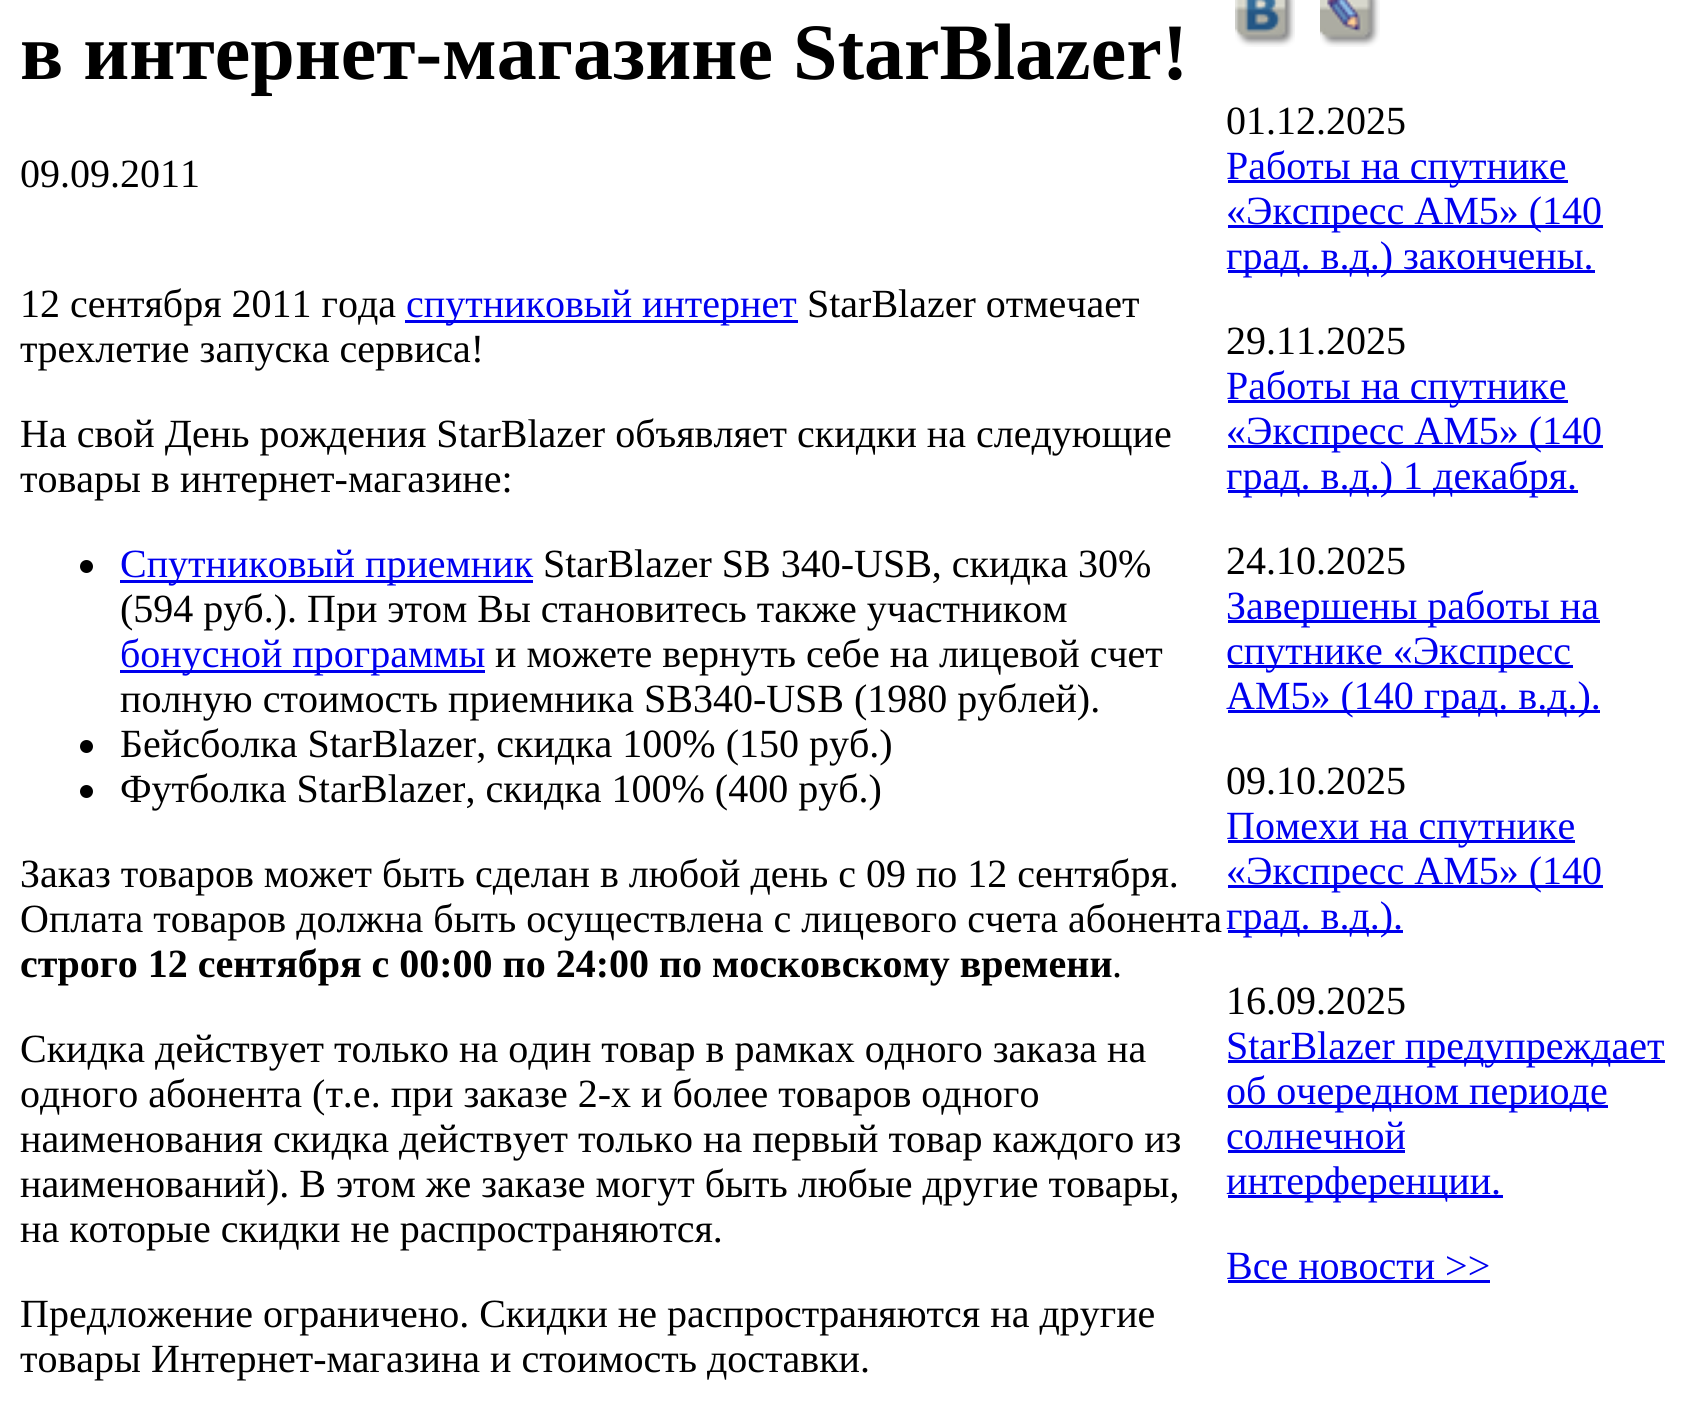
#include <cairo.h>
#include <math.h>
#include <stddef.h>


static void picture(cairo_t *cr, const char *path, double x, double y, double w, double h) {
    cairo_surface_t *image = cairo_image_surface_create_from_png(path);
    cairo_save(cr);
    cairo_set_source_surface(cr, image, x, y);
    cairo_rectangle(cr, x, y, w, h);
    cairo_fill(cr);
    cairo_restore(cr);
    cairo_surface_destroy(image);
}

int main(void) {
    cairo_surface_t *surface = cairo_image_surface_create(CAIRO_FORMAT_RGB24, 1693, 1422);
    cairo_t *cr = cairo_create(surface);
    cairo_font_options_t *options = cairo_font_options_create();
    cairo_font_options_set_hint_metrics(options, CAIRO_HINT_METRICS_OFF);
    cairo_font_options_set_hint_style(options, CAIRO_HINT_STYLE_NONE);
    cairo_set_font_options(cr, options);
    cairo_set_miter_limit(cr, 4);
    cairo_set_source_rgb(cr, 1, 1, 1);
    cairo_paint(cr);
    cairo_select_font_face(cr, "Liberation Serif", CAIRO_FONT_SLANT_NORMAL, CAIRO_FONT_WEIGHT_BOLD);
    cairo_set_font_size(cr, 80);
    cairo_set_source_rgb(cr, 0, 0, 0);
    cairo_move_to(cr, 20, 79);
    cairo_show_text(cr, "в интернет-магазине StarBlazer!");
    cairo_select_font_face(cr, "Liberation Serif", CAIRO_FONT_SLANT_NORMAL, CAIRO_FONT_WEIGHT_NORMAL);
    cairo_set_font_size(cr, 40);
    cairo_move_to(cr, 20, 187);
    cairo_show_text(cr, "09.09.2011");
    cairo_move_to(cr, 20, 317);
    cairo_show_text(cr, "12 сентября 2011 года");
    cairo_set_source_rgb(cr, 0, 0, 0.933);
    cairo_rectangle(cr, 405, 320, 393, 3);
    cairo_fill(cr);
    cairo_move_to(cr, 406, 317);
    cairo_show_text(cr, "спутниковый интернет");
    cairo_set_source_rgb(cr, 0, 0, 0);
    cairo_move_to(cr, 807, 317);
    cairo_show_text(cr, "StarBlazer отмечает");
    cairo_move_to(cr, 20, 362);
    cairo_show_text(cr, "трехлетие запуска сервиса!");
    cairo_move_to(cr, 20, 447);
    cairo_show_text(cr, "На свой День рождения StarBlazer объявляет скидки на следующие");
    cairo_move_to(cr, 20, 492);
    cairo_show_text(cr, "товары в интернет-магазине:");
    cairo_new_path(cr);
    cairo_arc(cr, 86.5, 566.5, 6.5, 0, 2 * M_PI);
    cairo_fill(cr);
    cairo_set_source_rgb(cr, 0, 0, 0.933);
    cairo_rectangle(cr, 120, 580, 413, 3);
    cairo_fill(cr);
    cairo_move_to(cr, 120, 577);
    cairo_show_text(cr, "Спутниковый приемник");
    cairo_set_source_rgb(cr, 0, 0, 0);
    cairo_move_to(cr, 543, 577);
    cairo_show_text(cr, "StarBlazer SB 340-USB, скидка 30%");
    cairo_move_to(cr, 120, 622);
    cairo_show_text(cr, "(594 руб.). При этом Вы становитесь также участником");
    cairo_set_source_rgb(cr, 0, 0, 0.933);
    cairo_rectangle(cr, 120, 670, 365, 3);
    cairo_fill(cr);
    cairo_move_to(cr, 120, 667);
    cairo_show_text(cr, "бонусной программы");
    cairo_set_source_rgb(cr, 0, 0, 0);
    cairo_move_to(cr, 495, 667);
    cairo_show_text(cr, "и можете вернуть себе на лицевой счет");
    cairo_move_to(cr, 120, 712);
    cairo_show_text(cr, "полную стоимость приемника SB340-USB (1980 рублей).");
    cairo_new_path(cr);
    cairo_arc(cr, 86.5, 746.5, 6.5, 0, 2 * M_PI);
    cairo_fill(cr);
    cairo_move_to(cr, 120, 757);
    cairo_show_text(cr, "Бейсболка StarBlazer, скидка 100% (150 руб.)");
    cairo_new_path(cr);
    cairo_arc(cr, 86.5, 791.5, 6.5, 0, 2 * M_PI);
    cairo_fill(cr);
    cairo_move_to(cr, 120, 802);
    cairo_show_text(cr, "Футболка StarBlazer, скидка 100% (400 руб.)");
    cairo_move_to(cr, 20, 887);
    cairo_show_text(cr, "Заказ товаров может быть сделан в любой день с 09 по 12 сентября.");
    cairo_move_to(cr, 20, 932);
    cairo_show_text(cr, "Оплата товаров должна быть осуществлена с лицевого счета абонента");
    cairo_select_font_face(cr, "Liberation Serif", CAIRO_FONT_SLANT_NORMAL, CAIRO_FONT_WEIGHT_BOLD);
    cairo_move_to(cr, 20, 977);
    cairo_show_text(cr, "строго 12 сентября с 00:00 по 24:00 по московскому времени");
    cairo_select_font_face(cr, "Liberation Serif", CAIRO_FONT_SLANT_NORMAL, CAIRO_FONT_WEIGHT_NORMAL);
    cairo_move_to(cr, 1112, 977);
    cairo_show_text(cr, ".");
    cairo_move_to(cr, 20, 1062);
    cairo_show_text(cr, "Скидка действует только на один товар в рамках одного заказа на");
    cairo_move_to(cr, 20, 1107);
    cairo_show_text(cr, "одного абонента (т.е. при заказе 2-х и более товаров одного");
    cairo_move_to(cr, 20, 1152);
    cairo_show_text(cr, "наименования скидка действует только на первый товар каждого из");
    cairo_move_to(cr, 20, 1197);
    cairo_show_text(cr, "наименований). В этом же заказе могут быть любые другие товары,");
    cairo_move_to(cr, 20, 1242);
    cairo_show_text(cr, "на которые скидки не распространяются.");
    cairo_move_to(cr, 20, 1327);
    cairo_show_text(cr, "Предложение ограничено. Скидки не распространяются на другие");
    cairo_move_to(cr, 20, 1372);
    cairo_show_text(cr, "товары Интернет-магазина и стоимость доставки.");
    picture(cr, "img1.png", 1235, 0, 60, 47);
    picture(cr, "img2.png", 1320, 0, 60, 47);
    cairo_move_to(cr, 1226, 134);
    cairo_show_text(cr, "01.12.2025");
    cairo_set_source_rgb(cr, 0, 0, 0.933);
    cairo_rectangle(cr, 1228, 180, 340, 3);
    cairo_fill(cr);
    cairo_move_to(cr, 1226, 179);
    cairo_show_text(cr, "Работы на спутнике");
    cairo_rectangle(cr, 1228, 225, 375, 3);
    cairo_fill(cr);
    cairo_move_to(cr, 1226, 224);
    cairo_show_text(cr, "«Экспресс АМ5» (140");
    cairo_rectangle(cr, 1228, 270, 367, 3);
    cairo_fill(cr);
    cairo_move_to(cr, 1226, 269);
    cairo_show_text(cr, "град. в.д.) закончены.");
    cairo_set_source_rgb(cr, 0, 0, 0);
    cairo_move_to(cr, 1226, 354);
    cairo_show_text(cr, "29.11.2025");
    cairo_set_source_rgb(cr, 0, 0, 0.933);
    cairo_rectangle(cr, 1228, 400, 340, 3);
    cairo_fill(cr);
    cairo_move_to(cr, 1226, 399);
    cairo_show_text(cr, "Работы на спутнике");
    cairo_rectangle(cr, 1228, 445, 375, 3);
    cairo_fill(cr);
    cairo_move_to(cr, 1226, 444);
    cairo_show_text(cr, "«Экспресс АМ5» (140");
    cairo_rectangle(cr, 1228, 490, 350, 3);
    cairo_fill(cr);
    cairo_move_to(cr, 1226, 489);
    cairo_show_text(cr, "град. в.д.) 1 декабря.");
    cairo_set_source_rgb(cr, 0, 0, 0);
    cairo_move_to(cr, 1226, 574);
    cairo_show_text(cr, "24.10.2025");
    cairo_set_source_rgb(cr, 0, 0, 0.933);
    cairo_rectangle(cr, 1228, 620, 372, 3);
    cairo_fill(cr);
    cairo_move_to(cr, 1226, 619);
    cairo_show_text(cr, "Завершены работы на");
    cairo_rectangle(cr, 1228, 665, 345, 3);
    cairo_fill(cr);
    cairo_move_to(cr, 1226, 664);
    cairo_show_text(cr, "спутнике «Экспресс");
    cairo_rectangle(cr, 1228, 710, 372, 3);
    cairo_fill(cr);
    cairo_move_to(cr, 1226, 709);
    cairo_show_text(cr, "АМ5» (140 град. в.д.).");
    cairo_set_source_rgb(cr, 0, 0, 0);
    cairo_move_to(cr, 1226, 794);
    cairo_show_text(cr, "09.10.2025");
    cairo_set_source_rgb(cr, 0, 0, 0.933);
    cairo_rectangle(cr, 1228, 840, 347, 3);
    cairo_fill(cr);
    cairo_move_to(cr, 1226, 839);
    cairo_show_text(cr, "Помехи на спутнике");
    cairo_rectangle(cr, 1228, 885, 375, 3);
    cairo_fill(cr);
    cairo_move_to(cr, 1226, 884);
    cairo_show_text(cr, "«Экспресс АМ5» (140");
    cairo_rectangle(cr, 1228, 930, 175, 3);
    cairo_fill(cr);
    cairo_move_to(cr, 1226, 929);
    cairo_show_text(cr, "град. в.д.).");
    cairo_set_source_rgb(cr, 0, 0, 0);
    cairo_move_to(cr, 1226, 1014);
    cairo_show_text(cr, "16.09.2025");
    cairo_set_source_rgb(cr, 0, 0, 0.933);
    cairo_rectangle(cr, 1228, 1060, 437, 3);
    cairo_fill(cr);
    cairo_move_to(cr, 1226, 1059);
    cairo_show_text(cr, "StarBlazer предупреждает");
    cairo_rectangle(cr, 1228, 1105, 380, 3);
    cairo_fill(cr);
    cairo_move_to(cr, 1226, 1104);
    cairo_show_text(cr, "об очередном периоде");
    cairo_move_to(cr, 1226, 1149);
    cairo_show_text(cr, "солнечной");
    cairo_rectangle(cr, 1228, 1150, 177, 3);
    cairo_fill(cr);
    cairo_rectangle(cr, 1228, 1195, 275, 3);
    cairo_fill(cr);
    cairo_move_to(cr, 1226, 1194);
    cairo_show_text(cr, "интерференции.");
    cairo_move_to(cr, 1226, 1279);
    cairo_show_text(cr, "Все новости >>");
    cairo_rectangle(cr, 1228, 1280, 262, 3);
    cairo_fill(cr);
    cairo_surface_write_to_png(surface, "page.png");
    cairo_font_options_destroy(options);
    cairo_destroy(cr);
    cairo_surface_destroy(surface);
    return 0;
}
